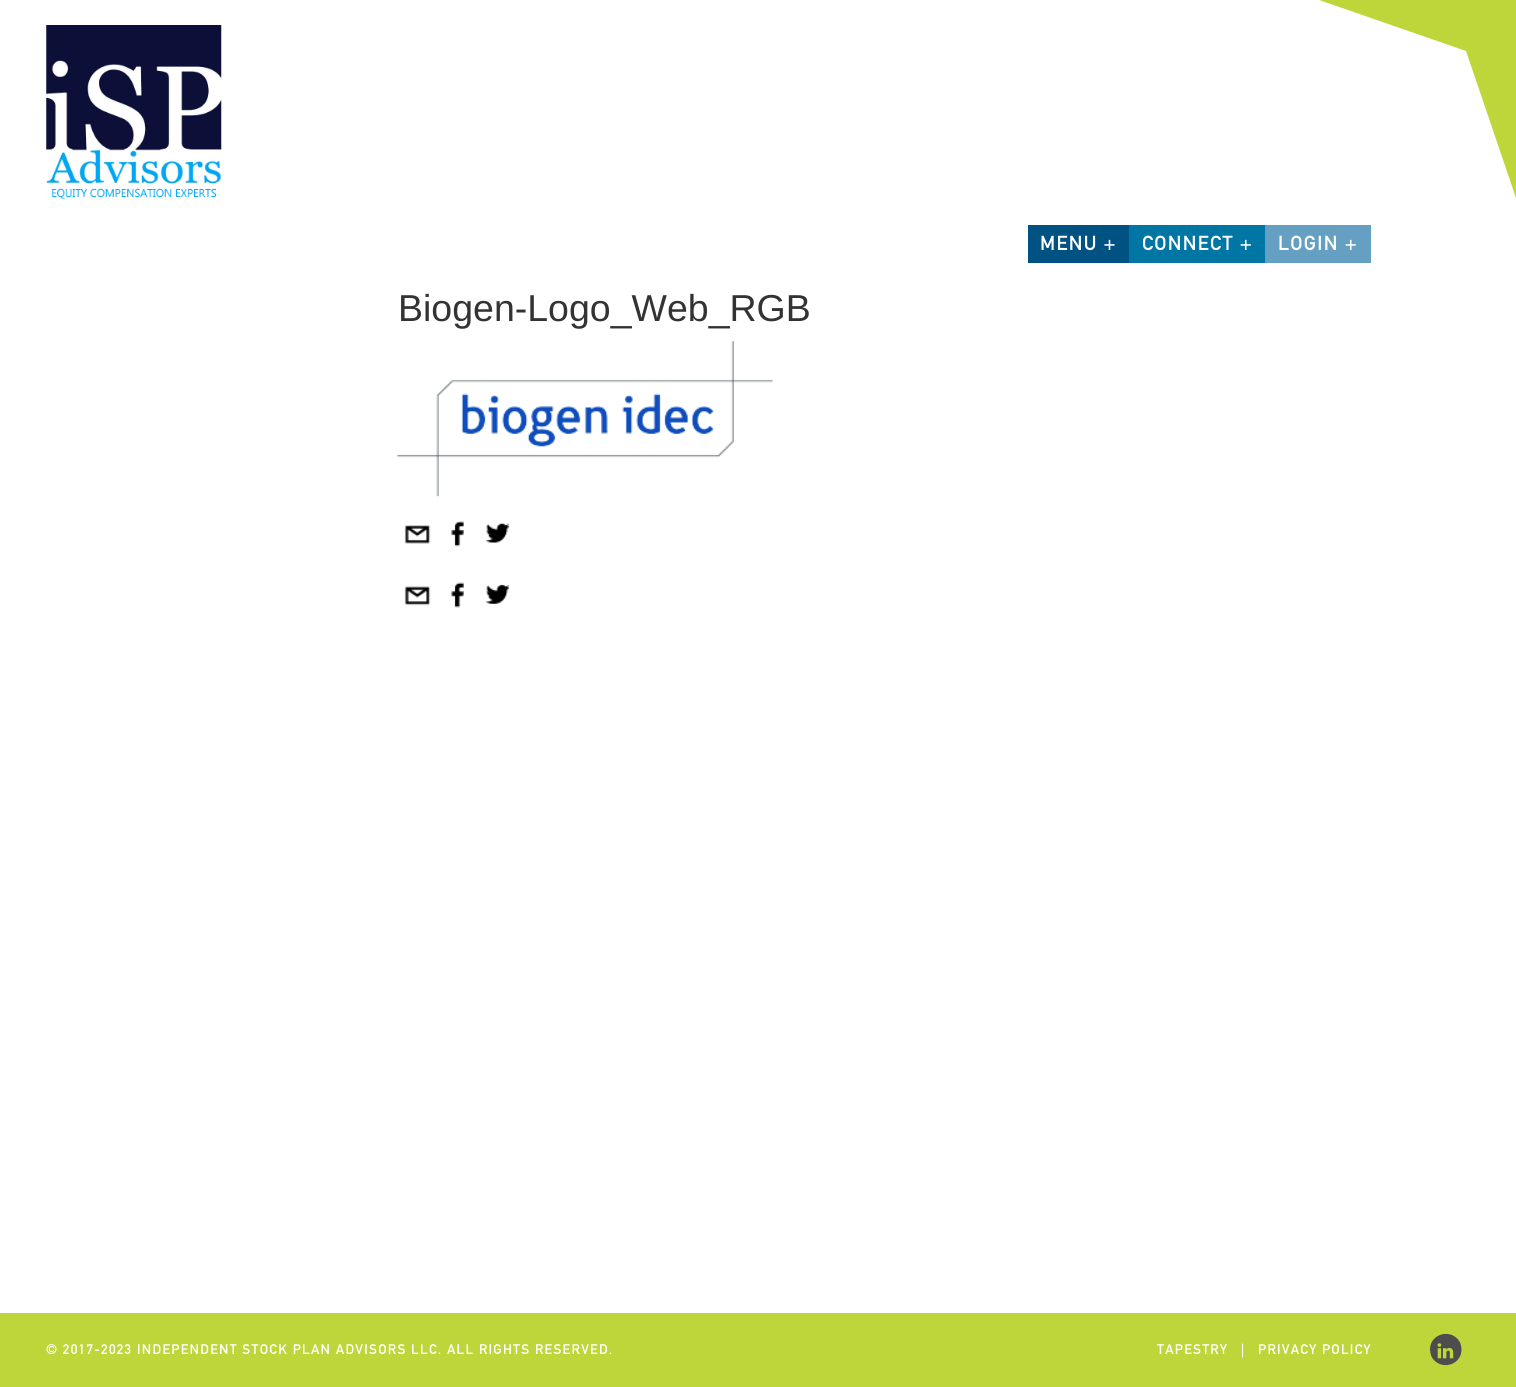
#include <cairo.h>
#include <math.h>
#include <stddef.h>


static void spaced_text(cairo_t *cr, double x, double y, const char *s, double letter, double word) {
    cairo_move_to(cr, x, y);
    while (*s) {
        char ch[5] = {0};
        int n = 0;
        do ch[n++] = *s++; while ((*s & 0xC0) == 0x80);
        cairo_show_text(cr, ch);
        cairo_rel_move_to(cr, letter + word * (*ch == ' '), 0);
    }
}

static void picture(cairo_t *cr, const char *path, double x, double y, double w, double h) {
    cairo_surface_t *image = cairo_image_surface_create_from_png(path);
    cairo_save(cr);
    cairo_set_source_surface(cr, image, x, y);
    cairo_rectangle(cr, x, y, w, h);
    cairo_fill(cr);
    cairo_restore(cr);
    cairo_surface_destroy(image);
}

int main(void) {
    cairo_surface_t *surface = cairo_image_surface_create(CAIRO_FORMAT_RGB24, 1516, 1387);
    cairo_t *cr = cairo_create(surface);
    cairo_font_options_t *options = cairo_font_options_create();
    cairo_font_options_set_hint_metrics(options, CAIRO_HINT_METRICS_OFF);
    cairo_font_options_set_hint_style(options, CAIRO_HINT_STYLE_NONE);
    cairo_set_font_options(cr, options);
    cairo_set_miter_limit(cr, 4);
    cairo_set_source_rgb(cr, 1, 1, 1);
    cairo_paint(cr);
    cairo_set_source_rgb(cr, 0.745, 0.839, 0.227);
    cairo_new_path(cr);
    cairo_move_to(cr, 1319, 0);
    cairo_line_to(cr, 1466, 51);
    cairo_line_to(cr, 1516, 198);
    cairo_line_to(cr, 1516, 0);
    cairo_close_path(cr);
    cairo_fill(cr);
    picture(cr, "img1.png", 46, 25, 176, 175);
    cairo_set_source_rgb(cr, 0, 0.322, 0.514);
    cairo_rectangle(cr, 1028, 225, 101, 38);
    cairo_fill(cr);
    cairo_select_font_face(cr, "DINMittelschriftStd", CAIRO_FONT_SLANT_NORMAL, CAIRO_FONT_WEIGHT_NORMAL);
    cairo_set_font_size(cr, 20);
    cairo_set_source_rgb(cr, 1, 1, 1);
    spaced_text(cr, 1040, 250, "MENU +", 1.25, 0);
    cairo_set_source_rgb(cr, 0, 0.463, 0.647);
    cairo_rectangle(cr, 1129, 225, 136, 38);
    cairo_fill(cr);
    cairo_set_source_rgb(cr, 1, 1, 1);
    spaced_text(cr, 1142, 250, "CONNECT +", 1.25, 0);
    cairo_set_source_rgb(cr, 0.396, 0.627, 0.761);
    cairo_rectangle(cr, 1265, 225, 106, 38);
    cairo_fill(cr);
    cairo_set_source_rgb(cr, 1, 1, 1);
    spaced_text(cr, 1278, 250, "LOGIN +", 1.25, 0);
    cairo_select_font_face(cr, "Liberation Sans", CAIRO_FONT_SLANT_NORMAL, CAIRO_FONT_WEIGHT_NORMAL);
    cairo_set_font_size(cr, 37.5);
    cairo_set_source_rgb(cr, 0.2, 0.2, 0.2);
    cairo_move_to(cr, 398, 321);
    cairo_show_text(cr, "Biogen-Logo_Web_RGB");
    picture(cr, "img2.png", 397, 341, 376, 156);
    picture(cr, "img3.png", 404, 525, 27, 19);
    picture(cr, "img4.png", 451, 521, 13, 26);
    picture(cr, "img5.png", 485, 523, 25, 20);
    picture(cr, "img6.png", 404, 586, 27, 20);
    picture(cr, "img7.png", 451, 582, 13, 26);
    picture(cr, "img8.png", 485, 584, 25, 20);
    cairo_set_source_rgb(cr, 0.745, 0.839, 0.227);
    cairo_rectangle(cr, 0, 1313, 1516, 74);
    cairo_fill(cr);
    cairo_select_font_face(cr, "DINMittelschriftStd", CAIRO_FONT_SLANT_NORMAL, CAIRO_FONT_WEIGHT_NORMAL);
    cairo_set_font_size(cr, 13.75);
    cairo_set_source_rgb(cr, 1, 1, 1);
    spaced_text(cr, 46, 1354, "© 2017-2023 INDEPENDENT STOCK PLAN ADVISORS LLC. ALL RIGHTS RESERVED.", 1.25, 0);
    spaced_text(cr, 1157, 1354, "TAPESTRY", 1.25, 0);
    spaced_text(cr, 1241, 1354, "|", 1.25, 0);
    spaced_text(cr, 1258, 1354, "PRIVACY POLICY", 1.25, 0);
    cairo_set_source_rgb(cr, 0.302, 0.302, 0.302);
    cairo_new_path(cr);
    cairo_move_to(cr, 1459.5, 1341.5);
    cairo_curve_to(cr, 1461, 1344, 1461.5, 1347.5, 1461.5, 1350.5);
    cairo_curve_to(cr, 1460.5, 1366, 1440, 1370.5, 1432, 1357.5);
    cairo_curve_to(cr, 1430.5, 1354.5, 1430, 1351.5, 1430, 1348.5);
    cairo_curve_to(cr, 1431, 1333, 1451.5, 1328.5, 1459.5, 1341.5);
    cairo_close_path(cr);
    cairo_fill(cr);
    picture(cr, "img9.png", 1437, 1343, 17, 16);
    cairo_surface_write_to_png(surface, "page.png");
    cairo_font_options_destroy(options);
    cairo_destroy(cr);
    cairo_surface_destroy(surface);
    return 0;
}
